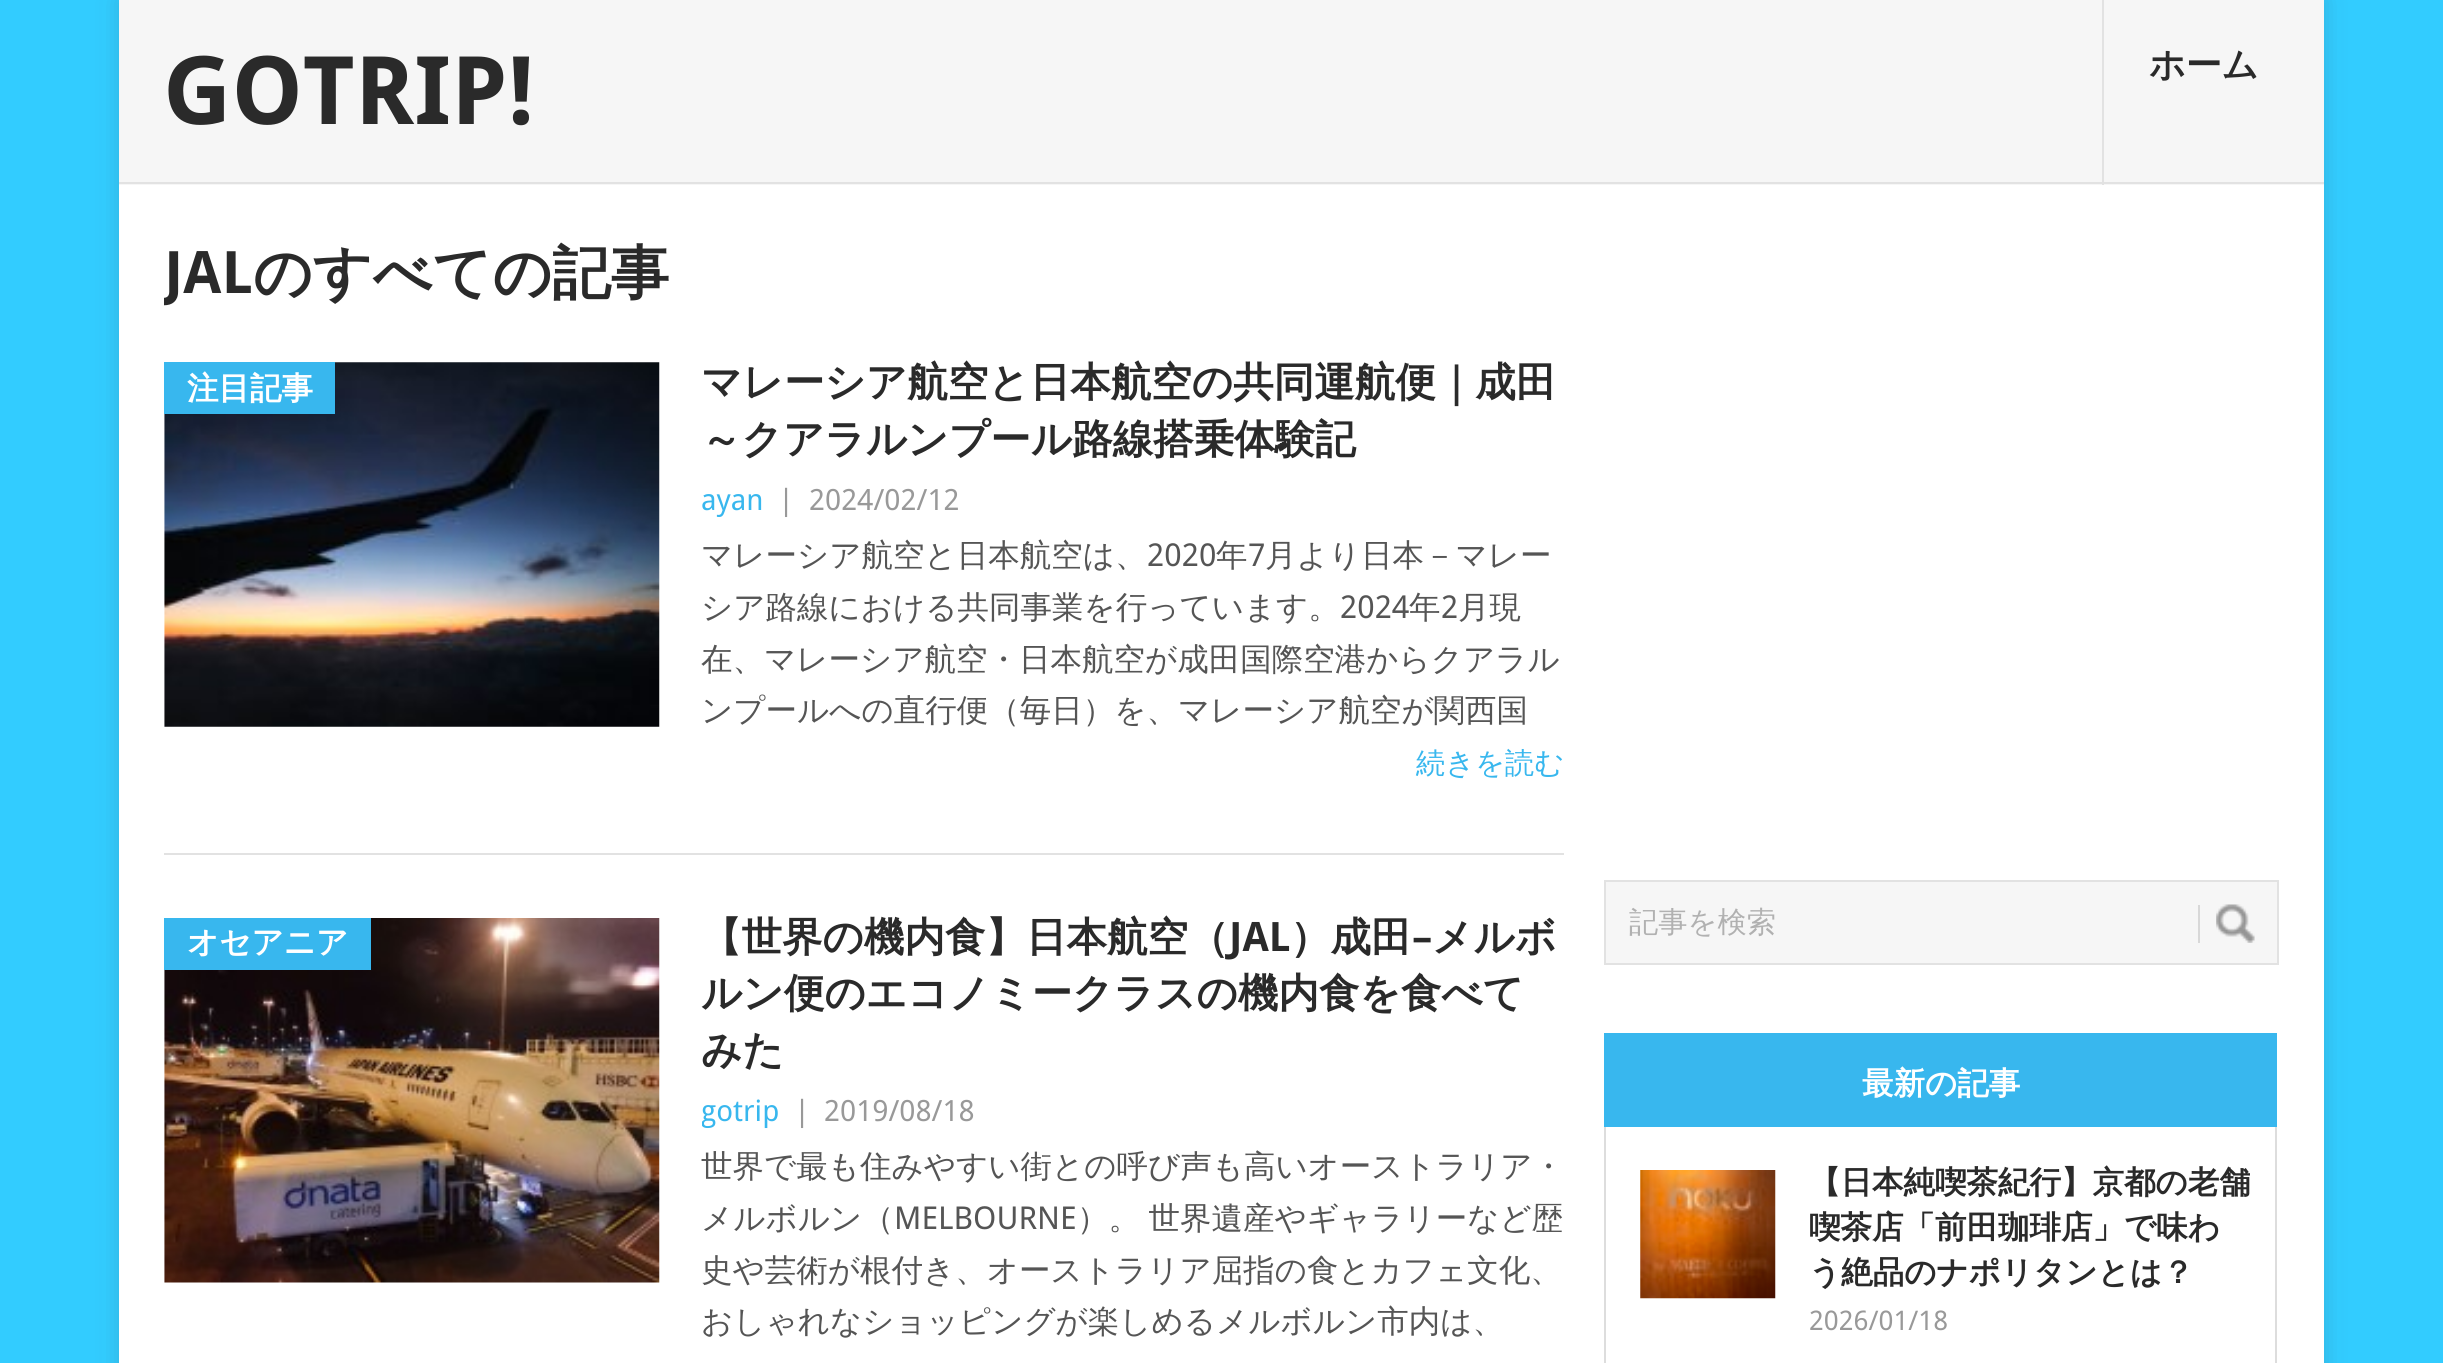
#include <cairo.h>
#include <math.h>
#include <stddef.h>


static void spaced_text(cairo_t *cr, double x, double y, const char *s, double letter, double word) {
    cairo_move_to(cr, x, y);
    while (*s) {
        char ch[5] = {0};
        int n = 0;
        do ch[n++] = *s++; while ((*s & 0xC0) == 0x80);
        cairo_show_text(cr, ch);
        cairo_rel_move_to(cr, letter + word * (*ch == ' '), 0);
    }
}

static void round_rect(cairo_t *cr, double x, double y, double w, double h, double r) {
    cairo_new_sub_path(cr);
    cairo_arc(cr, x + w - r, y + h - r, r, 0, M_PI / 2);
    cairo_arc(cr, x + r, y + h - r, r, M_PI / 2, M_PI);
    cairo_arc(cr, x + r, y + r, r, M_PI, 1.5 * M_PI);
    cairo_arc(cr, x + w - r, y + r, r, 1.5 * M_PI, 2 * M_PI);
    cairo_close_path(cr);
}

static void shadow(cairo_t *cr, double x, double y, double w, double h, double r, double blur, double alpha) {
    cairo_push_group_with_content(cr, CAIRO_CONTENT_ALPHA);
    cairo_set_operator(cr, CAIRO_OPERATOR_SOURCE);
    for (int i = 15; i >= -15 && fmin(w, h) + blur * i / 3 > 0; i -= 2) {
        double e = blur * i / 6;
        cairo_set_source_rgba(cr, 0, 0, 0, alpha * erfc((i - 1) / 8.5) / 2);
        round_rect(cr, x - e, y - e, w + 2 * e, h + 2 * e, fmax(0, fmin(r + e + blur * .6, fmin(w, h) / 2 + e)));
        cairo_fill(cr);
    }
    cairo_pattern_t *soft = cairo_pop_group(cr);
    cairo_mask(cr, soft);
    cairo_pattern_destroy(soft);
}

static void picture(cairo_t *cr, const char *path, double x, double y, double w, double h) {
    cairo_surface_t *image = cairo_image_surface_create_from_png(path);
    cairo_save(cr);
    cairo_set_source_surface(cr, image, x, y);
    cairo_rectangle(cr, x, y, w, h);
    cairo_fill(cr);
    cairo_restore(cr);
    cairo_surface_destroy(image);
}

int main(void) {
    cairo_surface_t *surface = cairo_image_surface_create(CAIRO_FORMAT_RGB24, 2443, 1363);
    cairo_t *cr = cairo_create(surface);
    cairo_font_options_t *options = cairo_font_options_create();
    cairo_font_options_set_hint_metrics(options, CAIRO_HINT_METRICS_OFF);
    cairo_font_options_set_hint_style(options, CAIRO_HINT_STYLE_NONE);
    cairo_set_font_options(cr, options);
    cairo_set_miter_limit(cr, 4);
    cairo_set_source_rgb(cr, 0.196, 0.8, 1);
    cairo_paint(cr);
    cairo_set_source_rgb(cr, 0.196, 0.196, 0.196);
    shadow(cr, 119, 0, 2205, 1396, 0, 11, 0.17);
    cairo_set_source_rgb(cr, 1, 1, 1);
    cairo_rectangle(cr, 119, 185, 2205, 1178);
    cairo_fill(cr);
    cairo_set_source_rgb(cr, 0.961, 0.961, 0.961);
    cairo_rectangle(cr, 119, 0, 2205, 185);
    cairo_fill(cr);
    cairo_select_font_face(cr, "Droid Sans", CAIRO_FONT_SLANT_NORMAL, CAIRO_FONT_WEIGHT_BOLD);
    cairo_set_font_size(cr, 94.5);
    cairo_set_source_rgb(cr, 0.165, 0.165, 0.165);
    cairo_move_to(cr, 163, 124);
    cairo_show_text(cr, "GOTRIP!");
    cairo_set_source_rgb(cr, 0.886, 0.886, 0.886);
    cairo_rectangle(cr, 2102, 0, 2, 185);
    cairo_fill(cr);
    cairo_select_font_face(cr, "WenQuanYi Zen Hei", CAIRO_FONT_SLANT_NORMAL, CAIRO_FONT_WEIGHT_BOLD);
    cairo_set_font_size(cr, 36);
    cairo_set_source_rgb(cr, 0.165, 0.165, 0.165);
    cairo_move_to(cr, 2149, 77);
    cairo_show_text(cr, "ホーム");
    cairo_set_source_rgb(cr, 0.886, 0.886, 0.886);
    cairo_rectangle(cr, 119, 182, 2205, 2);
    cairo_fill(cr);
    cairo_save(cr);
    cairo_rectangle(cr, 164, 185, 2115, 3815);
    cairo_clip(cr);
    cairo_select_font_face(cr, "Droid Sans", CAIRO_FONT_SLANT_NORMAL, CAIRO_FONT_WEIGHT_BOLD);
    cairo_set_font_size(cr, 58.5);
    cairo_set_source_rgb(cr, 0.165, 0.165, 0.165);
    cairo_move_to(cr, 164, 293);
    cairo_show_text(cr, "JAL");
    cairo_restore(cr);
    cairo_set_font_size(cr, 58.5);
    cairo_set_source_rgb(cr, 0.165, 0.165, 0.165);
    cairo_move_to(cr, 253, 293);
    cairo_show_text(cr, "のすべての記事");
    cairo_set_source_rgb(cr, 0.886, 0.886, 0.886);
    cairo_rectangle(cr, 164, 853, 1400, 2);
    cairo_fill(cr);
    picture(cr, "img1.png", 164, 362, 496, 365);
    cairo_set_source_rgb(cr, 0.22, 0.718, 0.933);
    cairo_rectangle(cr, 164, 362, 171, 52);
    cairo_fill(cr);
    cairo_set_font_size(cr, 31.5);
    cairo_set_source_rgb(cr, 1, 1, 1);
    cairo_move_to(cr, 187, 399);
    cairo_show_text(cr, "注目記事");
    cairo_set_font_size(cr, 40.5);
    cairo_set_source_rgb(cr, 0.165, 0.165, 0.165);
    cairo_move_to(cr, 701, 396);
    cairo_show_text(cr, "マレーシア航空と日本航空の共同運航便｜成田");
    cairo_move_to(cr, 701, 453);
    cairo_show_text(cr, "～クアラルンプール路線搭乗体験記");
    cairo_select_font_face(cr, "Droid Sans", CAIRO_FONT_SLANT_NORMAL, CAIRO_FONT_WEIGHT_NORMAL);
    cairo_set_font_size(cr, 29.25);
    cairo_set_source_rgb(cr, 0.22, 0.718, 0.933);
    cairo_move_to(cr, 701, 510);
    cairo_show_text(cr, "ayan");
    cairo_set_source_rgb(cr, 0.6, 0.6, 0.6);
    cairo_move_to(cr, 778, 510);
    cairo_show_text(cr, "|");
    cairo_move_to(cr, 809, 510);
    cairo_show_text(cr, "2024/02/12");
    cairo_select_font_face(cr, "WenQuanYi Zen Hei Medium", CAIRO_FONT_SLANT_NORMAL, CAIRO_FONT_WEIGHT_NORMAL);
    cairo_set_font_size(cr, 31.5);
    cairo_set_source_rgb(cr, 0.333, 0.333, 0.333);
    cairo_move_to(cr, 701, 566);
    cairo_show_text(cr, "マレーシア航空と日本航空は、");
    cairo_select_font_face(cr, "Droid Sans", CAIRO_FONT_SLANT_NORMAL, CAIRO_FONT_WEIGHT_NORMAL);
    cairo_move_to(cr, 1147, 566);
    cairo_show_text(cr, "2020");
    cairo_select_font_face(cr, "WenQuanYi Zen Hei Medium", CAIRO_FONT_SLANT_NORMAL, CAIRO_FONT_WEIGHT_NORMAL);
    cairo_move_to(cr, 1216, 566);
    cairo_show_text(cr, "年");
    cairo_select_font_face(cr, "Droid Sans", CAIRO_FONT_SLANT_NORMAL, CAIRO_FONT_WEIGHT_NORMAL);
    cairo_move_to(cr, 1248, 566);
    cairo_show_text(cr, "7");
    cairo_select_font_face(cr, "WenQuanYi Zen Hei Medium", CAIRO_FONT_SLANT_NORMAL, CAIRO_FONT_WEIGHT_NORMAL);
    cairo_move_to(cr, 1265, 566);
    cairo_show_text(cr, "月より日本－マレー");
    cairo_move_to(cr, 701, 618);
    cairo_show_text(cr, "シア路線における共同事業を行っています。");
    cairo_select_font_face(cr, "Droid Sans", CAIRO_FONT_SLANT_NORMAL, CAIRO_FONT_WEIGHT_NORMAL);
    cairo_move_to(cr, 1340, 618);
    cairo_show_text(cr, "2024");
    cairo_select_font_face(cr, "WenQuanYi Zen Hei Medium", CAIRO_FONT_SLANT_NORMAL, CAIRO_FONT_WEIGHT_NORMAL);
    cairo_move_to(cr, 1409, 618);
    cairo_show_text(cr, "年");
    cairo_select_font_face(cr, "Droid Sans", CAIRO_FONT_SLANT_NORMAL, CAIRO_FONT_WEIGHT_NORMAL);
    cairo_move_to(cr, 1441, 618);
    cairo_show_text(cr, "2");
    cairo_select_font_face(cr, "WenQuanYi Zen Hei Medium", CAIRO_FONT_SLANT_NORMAL, CAIRO_FONT_WEIGHT_NORMAL);
    cairo_move_to(cr, 1458, 618);
    cairo_show_text(cr, "月現");
    cairo_move_to(cr, 701, 670);
    cairo_show_text(cr, "在、マレーシア航空・日本航空が成田国際空港からクアラル");
    cairo_move_to(cr, 701, 721);
    cairo_show_text(cr, "ンプールへの直行便（毎日）を、マレーシア航空が関西国");
    cairo_set_font_size(cr, 29.25);
    cairo_set_source_rgb(cr, 0.22, 0.718, 0.933);
    cairo_move_to(cr, 1416, 773);
    cairo_show_text(cr, "続きを読む");
    picture(cr, "img2.png", 164, 918, 496, 365);
    cairo_rectangle(cr, 164, 918, 207, 52);
    cairo_fill(cr);
    cairo_select_font_face(cr, "WenQuanYi Zen Hei", CAIRO_FONT_SLANT_NORMAL, CAIRO_FONT_WEIGHT_BOLD);
    cairo_set_font_size(cr, 31.5);
    cairo_set_source_rgb(cr, 1, 1, 1);
    cairo_move_to(cr, 187, 953);
    cairo_show_text(cr, "オセアニア");
    cairo_set_font_size(cr, 40.5);
    cairo_set_source_rgb(cr, 0.165, 0.165, 0.165);
    cairo_move_to(cr, 701, 951);
    cairo_show_text(cr, "【世界の機内食】日本航空（");
    cairo_select_font_face(cr, "Droid Sans", CAIRO_FONT_SLANT_NORMAL, CAIRO_FONT_WEIGHT_BOLD);
    cairo_move_to(cr, 1229, 951);
    cairo_show_text(cr, "JAL");
    cairo_select_font_face(cr, "WenQuanYi Zen Hei", CAIRO_FONT_SLANT_NORMAL, CAIRO_FONT_WEIGHT_BOLD);
    cairo_move_to(cr, 1290, 951);
    cairo_show_text(cr, "）成田");
    cairo_select_font_face(cr, "Droid Sans", CAIRO_FONT_SLANT_NORMAL, CAIRO_FONT_WEIGHT_BOLD);
    cairo_move_to(cr, 1412, 951);
    cairo_show_text(cr, "–");
    cairo_select_font_face(cr, "WenQuanYi Zen Hei", CAIRO_FONT_SLANT_NORMAL, CAIRO_FONT_WEIGHT_BOLD);
    cairo_move_to(cr, 1432, 951);
    cairo_show_text(cr, "メルボ");
    cairo_move_to(cr, 701, 1007);
    cairo_show_text(cr, "ルン便のエコノミークラスの機内食を食べて");
    cairo_move_to(cr, 701, 1064);
    cairo_show_text(cr, "みた");
    cairo_save(cr);
    cairo_rectangle(cr, 702, 909, 862, 227);
    cairo_clip(cr);
    cairo_select_font_face(cr, "Droid Sans", CAIRO_FONT_SLANT_NORMAL, CAIRO_FONT_WEIGHT_NORMAL);
    cairo_set_font_size(cr, 29.25);
    cairo_set_source_rgb(cr, 0.22, 0.718, 0.933);
    cairo_move_to(cr, 701, 1121);
    cairo_show_text(cr, "gotrip");
    cairo_restore(cr);
    cairo_select_font_face(cr, "Droid Sans", CAIRO_FONT_SLANT_NORMAL, CAIRO_FONT_WEIGHT_NORMAL);
    cairo_set_font_size(cr, 29.25);
    cairo_set_source_rgb(cr, 0.6, 0.6, 0.6);
    cairo_move_to(cr, 794, 1121);
    cairo_show_text(cr, "|");
    cairo_move_to(cr, 824, 1121);
    cairo_show_text(cr, "2019/08/18");
    cairo_select_font_face(cr, "WenQuanYi Zen Hei Medium", CAIRO_FONT_SLANT_NORMAL, CAIRO_FONT_WEIGHT_NORMAL);
    cairo_set_font_size(cr, 31.5);
    cairo_set_source_rgb(cr, 0.333, 0.333, 0.333);
    cairo_move_to(cr, 701, 1177);
    cairo_show_text(cr, "世界で最も住みやすい街との呼び声も高いオーストラリア・");
    cairo_move_to(cr, 701, 1229);
    cairo_show_text(cr, "メルボルン（");
    cairo_select_font_face(cr, "Droid Sans", CAIRO_FONT_SLANT_NORMAL, CAIRO_FONT_WEIGHT_NORMAL);
    cairo_move_to(cr, 894, 1229);
    cairo_show_text(cr, "MELBOURNE");
    cairo_select_font_face(cr, "WenQuanYi Zen Hei Medium", CAIRO_FONT_SLANT_NORMAL, CAIRO_FONT_WEIGHT_NORMAL);
    spaced_text(cr, 1077, 1229, "）。 世界遺産やギャラリーなど歴", 0, -1);
    cairo_move_to(cr, 701, 1281);
    cairo_show_text(cr, "史や芸術が根付き、オーストラリア屈指の食とカフェ文化、");
    cairo_move_to(cr, 701, 1332);
    cairo_show_text(cr, "おしゃれなショッピングが楽しめるメルボルン市内は、");
    cairo_set_source_rgb(cr, 0.961, 0.961, 0.961);
    cairo_rectangle(cr, 1605, 881, 673, 83);
    cairo_fill_preserve(cr);
    cairo_set_source_rgb(cr, 0.886, 0.886, 0.886);
    cairo_stroke(cr);
    cairo_set_font_size(cr, 29.25);
    cairo_set_source_rgb(cr, 0.694, 0.694, 0.694);
    cairo_move_to(cr, 1629, 932);
    cairo_show_text(cr, "記事を検索");
    picture(cr, "img3.png", 2216, 904, 39, 39);
    cairo_set_source_rgb(cr, 0.847, 0.847, 0.847);
    cairo_rectangle(cr, 2198, 905, 2, 38);
    cairo_fill(cr);
    cairo_set_source_rgb(cr, 0.22, 0.718, 0.933);
    cairo_rectangle(cr, 1604, 1033, 673, 94);
    cairo_fill(cr);
    cairo_select_font_face(cr, "WenQuanYi Zen Hei", CAIRO_FONT_SLANT_NORMAL, CAIRO_FONT_WEIGHT_BOLD);
    cairo_set_font_size(cr, 31.5);
    cairo_set_source_rgb(cr, 1, 1, 1);
    cairo_move_to(cr, 1862, 1094);
    cairo_show_text(cr, "最新の記事");
    cairo_set_source_rgb(cr, 0.867, 0.867, 0.867);
    cairo_rectangle(cr, 2275, 1127, 2, 236);
    cairo_fill(cr);
    cairo_rectangle(cr, 1604, 1127, 2, 236);
    cairo_fill(cr);
    picture(cr, "img4.png", 1640, 1170, 136, 129);
    cairo_set_source_rgb(cr, 0.165, 0.165, 0.165);
    cairo_move_to(cr, 1809, 1193);
    cairo_show_text(cr, "【日本純喫茶紀行】京都の老舗");
    cairo_move_to(cr, 1809, 1238);
    cairo_show_text(cr, "喫茶店「前田珈琲店」で味わ");
    cairo_move_to(cr, 1809, 1283);
    cairo_show_text(cr, "う絶品のナポリタンとは？");
    cairo_select_font_face(cr, "Droid Sans", CAIRO_FONT_SLANT_NORMAL, CAIRO_FONT_WEIGHT_NORMAL);
    cairo_set_font_size(cr, 27);
    cairo_set_source_rgb(cr, 0.6, 0.6, 0.6);
    cairo_move_to(cr, 1809, 1330);
    cairo_show_text(cr, "2026/01/18");
    cairo_surface_write_to_png(surface, "page.png");
    cairo_font_options_destroy(options);
    cairo_destroy(cr);
    cairo_surface_destroy(surface);
    return 0;
}
